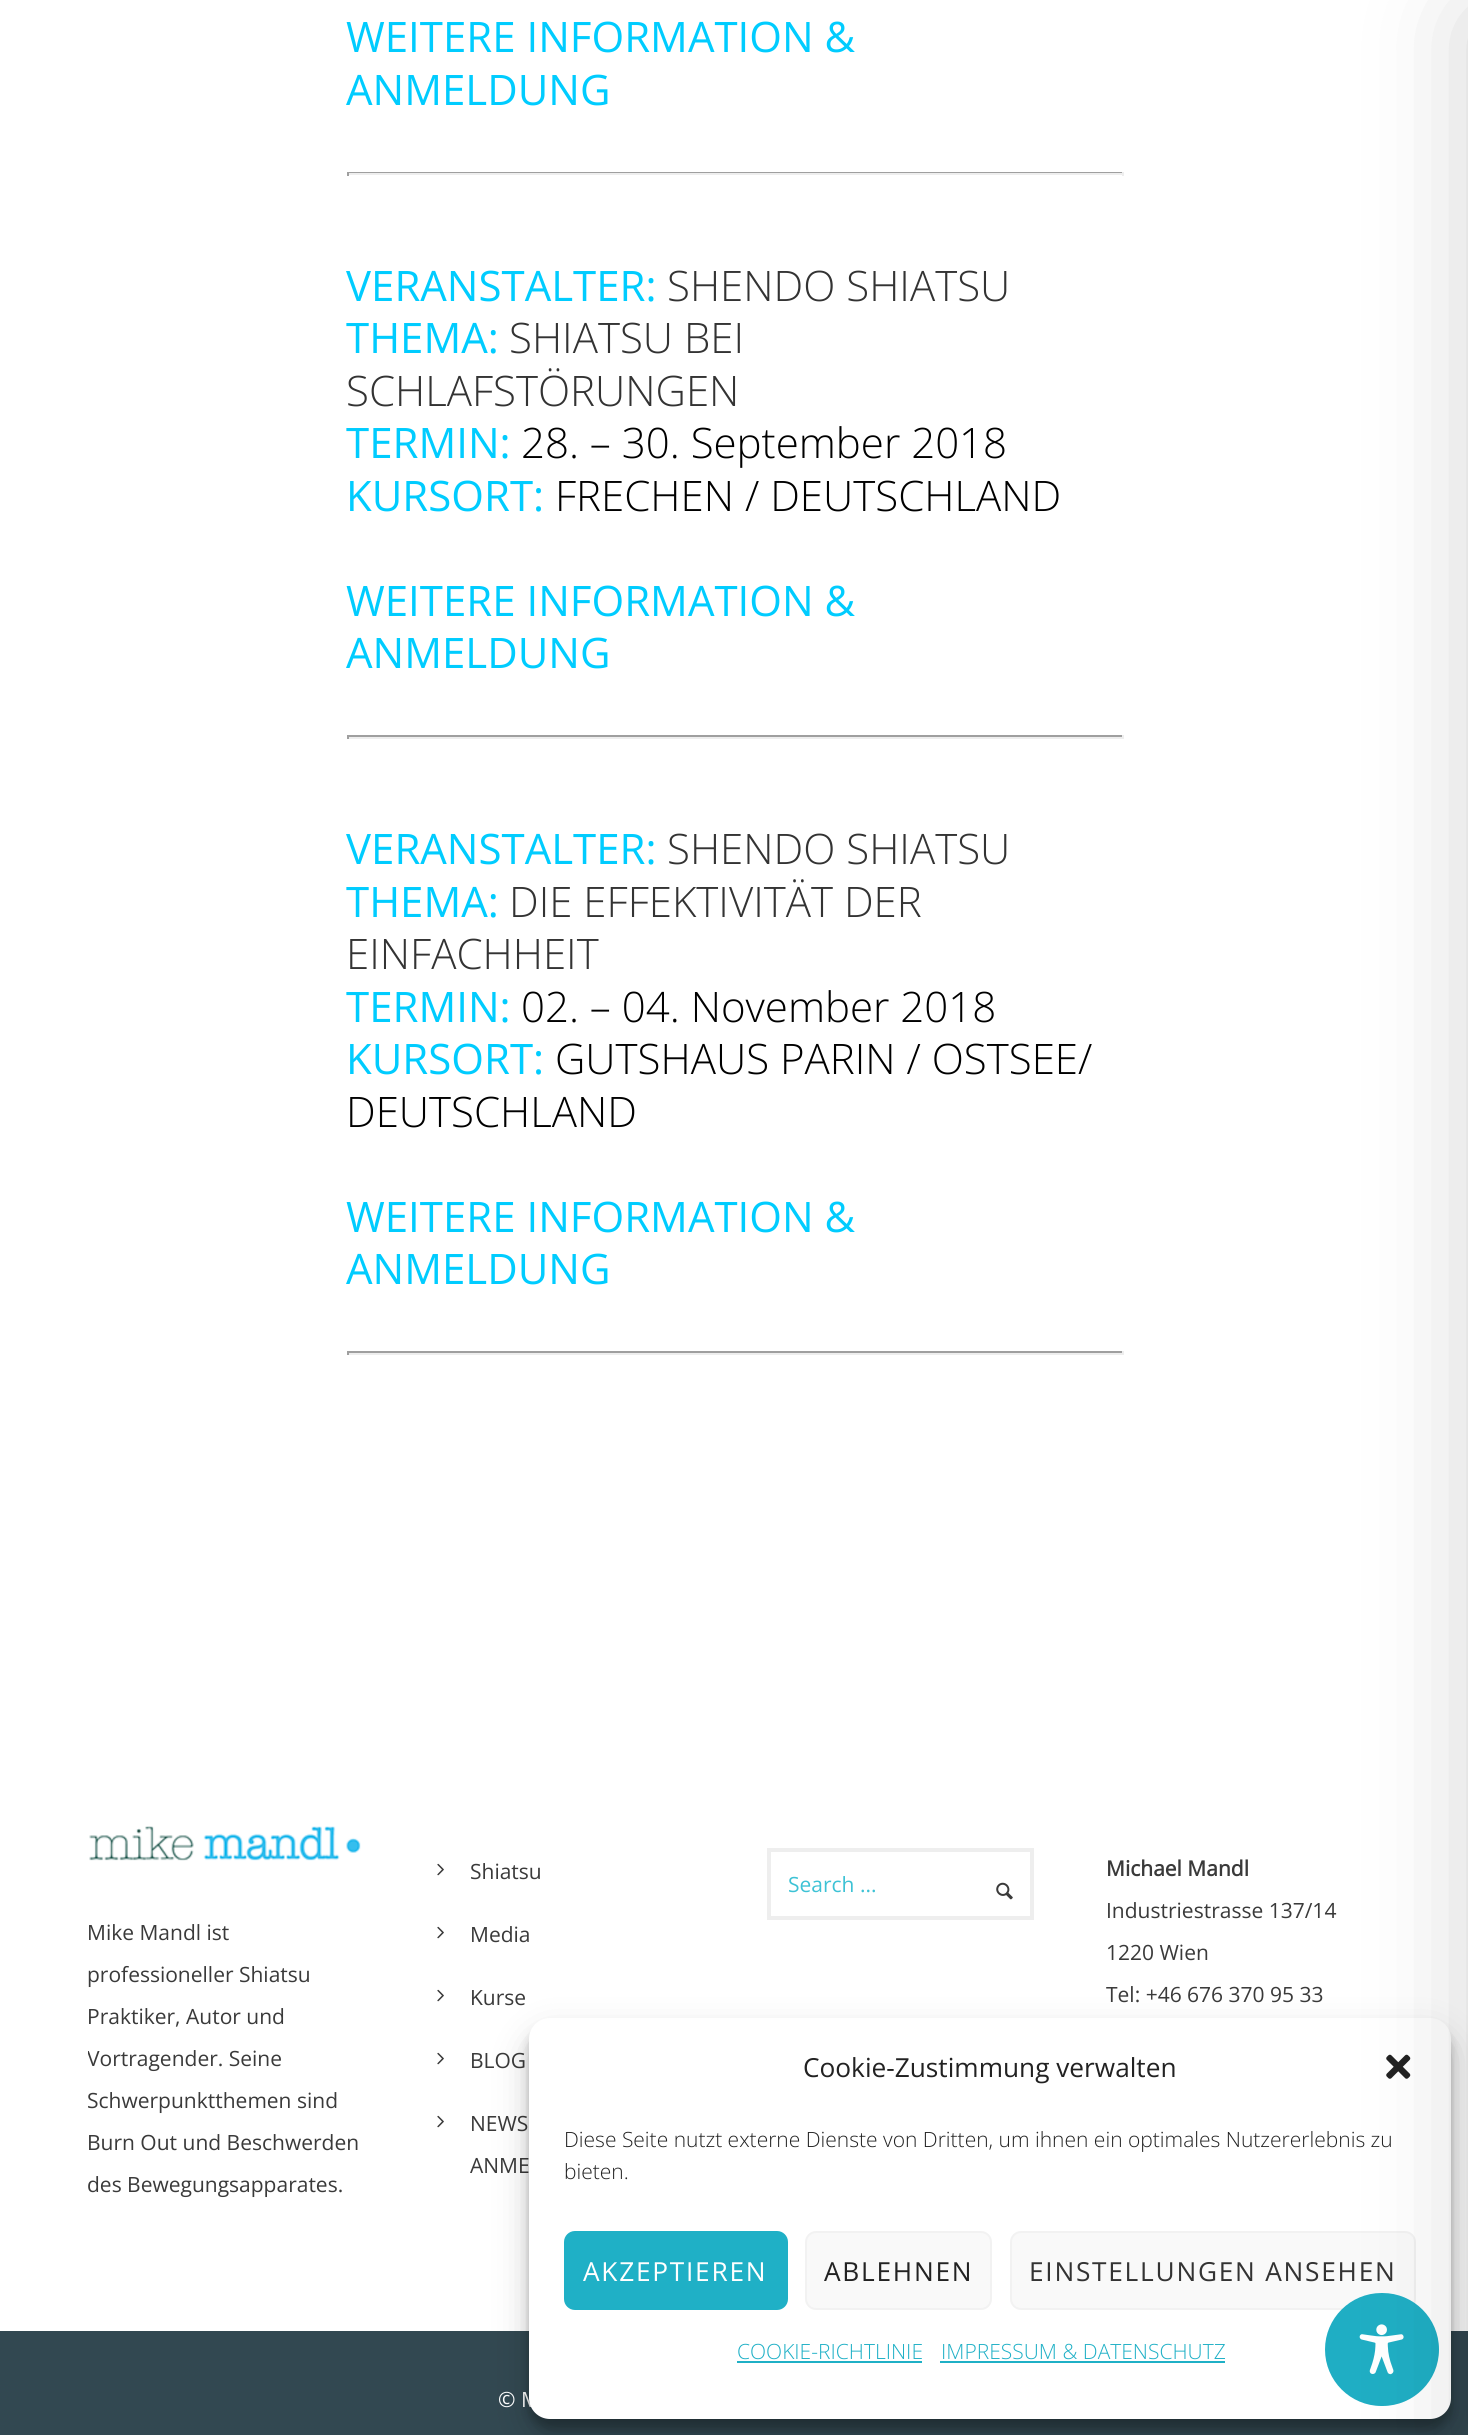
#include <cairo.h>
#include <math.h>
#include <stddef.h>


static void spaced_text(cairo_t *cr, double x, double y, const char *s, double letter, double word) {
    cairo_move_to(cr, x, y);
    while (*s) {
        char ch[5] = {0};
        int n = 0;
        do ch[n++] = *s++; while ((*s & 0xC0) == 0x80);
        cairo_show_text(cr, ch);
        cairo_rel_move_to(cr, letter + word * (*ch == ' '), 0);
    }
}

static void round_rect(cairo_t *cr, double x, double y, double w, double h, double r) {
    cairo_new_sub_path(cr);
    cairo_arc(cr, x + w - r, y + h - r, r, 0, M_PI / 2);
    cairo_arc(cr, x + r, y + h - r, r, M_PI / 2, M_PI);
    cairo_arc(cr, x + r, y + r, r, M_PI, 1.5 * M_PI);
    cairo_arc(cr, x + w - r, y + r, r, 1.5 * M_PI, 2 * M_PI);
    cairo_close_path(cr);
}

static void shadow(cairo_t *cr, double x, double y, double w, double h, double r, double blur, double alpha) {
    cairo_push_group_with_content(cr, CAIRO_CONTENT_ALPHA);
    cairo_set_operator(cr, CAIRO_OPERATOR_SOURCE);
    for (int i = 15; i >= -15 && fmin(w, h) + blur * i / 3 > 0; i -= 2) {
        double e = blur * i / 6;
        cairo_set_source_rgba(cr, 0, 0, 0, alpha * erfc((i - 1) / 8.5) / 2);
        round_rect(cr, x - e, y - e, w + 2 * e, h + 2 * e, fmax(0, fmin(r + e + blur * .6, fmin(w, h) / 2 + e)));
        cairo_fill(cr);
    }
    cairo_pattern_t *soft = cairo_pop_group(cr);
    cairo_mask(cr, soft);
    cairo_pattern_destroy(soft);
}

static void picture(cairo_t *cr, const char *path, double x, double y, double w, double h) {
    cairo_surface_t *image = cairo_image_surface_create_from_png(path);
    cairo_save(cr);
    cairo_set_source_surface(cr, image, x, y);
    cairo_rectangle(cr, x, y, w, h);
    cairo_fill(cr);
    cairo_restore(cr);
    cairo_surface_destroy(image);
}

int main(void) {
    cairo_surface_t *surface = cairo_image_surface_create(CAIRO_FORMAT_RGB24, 1468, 2435);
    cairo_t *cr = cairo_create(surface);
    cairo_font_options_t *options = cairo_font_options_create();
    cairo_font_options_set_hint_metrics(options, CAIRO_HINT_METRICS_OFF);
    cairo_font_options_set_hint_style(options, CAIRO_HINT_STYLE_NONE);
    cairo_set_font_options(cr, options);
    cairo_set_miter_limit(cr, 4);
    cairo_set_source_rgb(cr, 1, 1, 1);
    cairo_paint(cr);
    cairo_select_font_face(cr, "Open Sans", CAIRO_FONT_SLANT_NORMAL, CAIRO_FONT_WEIGHT_NORMAL);
    cairo_set_font_size(cr, 42);
    cairo_set_source_rgb(cr, 0, 0.8, 1);
    cairo_move_to(cr, 346, 52);
    cairo_show_text(cr, "WEITERE INFORMATION &");
    cairo_move_to(cr, 346, 105);
    cairo_show_text(cr, "ANMELDUNG");
    cairo_set_source_rgb(cr, 0.624, 0.624, 0.624);
    cairo_rectangle(cr, 347, 172, 777, 1);
    cairo_fill(cr);
    cairo_set_source_rgb(cr, 0.933, 0.933, 0.933);
    cairo_rectangle(cr, 1122, 172, 2, 4);
    cairo_fill(cr);
    cairo_rectangle(cr, 347, 173, 777, 2);
    cairo_fill(cr);
    cairo_set_source_rgb(cr, 0.624, 0.624, 0.624);
    cairo_rectangle(cr, 347, 172, 2, 4);
    cairo_fill(cr);
    cairo_set_source_rgb(cr, 0, 0.8, 1);
    cairo_move_to(cr, 346, 301);
    cairo_show_text(cr, "VERANSTALTER:");
    cairo_select_font_face(cr, "Open Sans Light", CAIRO_FONT_SLANT_NORMAL, CAIRO_FONT_WEIGHT_NORMAL);
    cairo_set_source_rgb(cr, 0.2, 0.2, 0.2);
    cairo_move_to(cr, 667, 301);
    cairo_show_text(cr, "SHENDO SHIATSU");
    cairo_select_font_face(cr, "Open Sans", CAIRO_FONT_SLANT_NORMAL, CAIRO_FONT_WEIGHT_NORMAL);
    cairo_set_source_rgb(cr, 0, 0.8, 1);
    cairo_move_to(cr, 346, 353);
    cairo_show_text(cr, "THEMA:");
    cairo_select_font_face(cr, "Open Sans Light", CAIRO_FONT_SLANT_NORMAL, CAIRO_FONT_WEIGHT_NORMAL);
    cairo_set_source_rgb(cr, 0.2, 0.2, 0.2);
    cairo_move_to(cr, 509, 353);
    cairo_show_text(cr, "SHIATSU BEI");
    cairo_move_to(cr, 346, 406);
    cairo_show_text(cr, "SCHLAFSTÖRUNGEN");
    cairo_select_font_face(cr, "Open Sans", CAIRO_FONT_SLANT_NORMAL, CAIRO_FONT_WEIGHT_NORMAL);
    cairo_set_source_rgb(cr, 0, 0.8, 1);
    cairo_move_to(cr, 346, 458);
    cairo_show_text(cr, "TERMIN:");
    cairo_select_font_face(cr, "Open Sans Light", CAIRO_FONT_SLANT_NORMAL, CAIRO_FONT_WEIGHT_NORMAL);
    cairo_set_source_rgb(cr, 0, 0, 0);
    cairo_move_to(cr, 521, 458);
    cairo_show_text(cr, "28. – 30. September 2018");
    cairo_select_font_face(cr, "Open Sans", CAIRO_FONT_SLANT_NORMAL, CAIRO_FONT_WEIGHT_NORMAL);
    cairo_set_source_rgb(cr, 0, 0.8, 1);
    cairo_move_to(cr, 346, 511);
    cairo_show_text(cr, "KURSORT:");
    cairo_select_font_face(cr, "Open Sans Light", CAIRO_FONT_SLANT_NORMAL, CAIRO_FONT_WEIGHT_NORMAL);
    cairo_set_source_rgb(cr, 0, 0, 0);
    cairo_move_to(cr, 555, 511);
    cairo_show_text(cr, "FRECHEN / DEUTSCHLAND");
    cairo_select_font_face(cr, "Open Sans", CAIRO_FONT_SLANT_NORMAL, CAIRO_FONT_WEIGHT_NORMAL);
    cairo_set_source_rgb(cr, 0, 0.8, 1);
    cairo_move_to(cr, 346, 616);
    cairo_show_text(cr, "WEITERE INFORMATION &");
    cairo_move_to(cr, 346, 668);
    cairo_show_text(cr, "ANMELDUNG");
    cairo_set_source_rgb(cr, 0.624, 0.624, 0.624);
    cairo_rectangle(cr, 347, 735, 777, 2);
    cairo_fill(cr);
    cairo_set_source_rgb(cr, 0.933, 0.933, 0.933);
    cairo_rectangle(cr, 1122, 735, 2, 4);
    cairo_fill(cr);
    cairo_rectangle(cr, 347, 737, 777, 2);
    cairo_fill(cr);
    cairo_set_source_rgb(cr, 0.624, 0.624, 0.624);
    cairo_rectangle(cr, 347, 735, 2, 4);
    cairo_fill(cr);
    cairo_set_source_rgb(cr, 0, 0.8, 1);
    cairo_move_to(cr, 346, 864);
    cairo_show_text(cr, "VERANSTALTER:");
    cairo_select_font_face(cr, "Open Sans Light", CAIRO_FONT_SLANT_NORMAL, CAIRO_FONT_WEIGHT_NORMAL);
    cairo_set_source_rgb(cr, 0.2, 0.2, 0.2);
    cairo_move_to(cr, 667, 864);
    cairo_show_text(cr, "SHENDO SHIATSU");
    cairo_select_font_face(cr, "Open Sans", CAIRO_FONT_SLANT_NORMAL, CAIRO_FONT_WEIGHT_NORMAL);
    cairo_set_source_rgb(cr, 0, 0.8, 1);
    cairo_move_to(cr, 346, 917);
    cairo_show_text(cr, "THEMA:");
    cairo_select_font_face(cr, "Open Sans Light", CAIRO_FONT_SLANT_NORMAL, CAIRO_FONT_WEIGHT_NORMAL);
    cairo_set_source_rgb(cr, 0.2, 0.2, 0.2);
    cairo_move_to(cr, 509, 917);
    cairo_show_text(cr, "DIE EFFEKTIVITÄT DER");
    cairo_move_to(cr, 346, 969);
    cairo_show_text(cr, "EINFACHHEIT");
    cairo_select_font_face(cr, "Open Sans", CAIRO_FONT_SLANT_NORMAL, CAIRO_FONT_WEIGHT_NORMAL);
    cairo_set_source_rgb(cr, 0, 0.8, 1);
    cairo_move_to(cr, 346, 1022);
    cairo_show_text(cr, "TERMIN:");
    cairo_select_font_face(cr, "Open Sans Light", CAIRO_FONT_SLANT_NORMAL, CAIRO_FONT_WEIGHT_NORMAL);
    cairo_set_source_rgb(cr, 0, 0, 0);
    cairo_move_to(cr, 521, 1022);
    cairo_show_text(cr, "02. – 04. November 2018");
    cairo_select_font_face(cr, "Open Sans", CAIRO_FONT_SLANT_NORMAL, CAIRO_FONT_WEIGHT_NORMAL);
    cairo_set_source_rgb(cr, 0, 0.8, 1);
    cairo_move_to(cr, 346, 1074);
    cairo_show_text(cr, "KURSORT:");
    cairo_select_font_face(cr, "Open Sans Light", CAIRO_FONT_SLANT_NORMAL, CAIRO_FONT_WEIGHT_NORMAL);
    cairo_set_source_rgb(cr, 0, 0, 0);
    cairo_move_to(cr, 555, 1074);
    cairo_show_text(cr, "GUTSHAUS PARIN / OSTSEE/");
    cairo_move_to(cr, 346, 1127);
    cairo_show_text(cr, "DEUTSCHLAND");
    cairo_select_font_face(cr, "Open Sans", CAIRO_FONT_SLANT_NORMAL, CAIRO_FONT_WEIGHT_NORMAL);
    cairo_set_source_rgb(cr, 0, 0.8, 1);
    cairo_move_to(cr, 346, 1232);
    cairo_show_text(cr, "WEITERE INFORMATION &");
    cairo_move_to(cr, 346, 1284);
    cairo_show_text(cr, "ANMELDUNG");
    cairo_set_source_rgb(cr, 0.624, 0.624, 0.624);
    cairo_rectangle(cr, 347, 1351, 777, 2);
    cairo_fill(cr);
    cairo_set_source_rgb(cr, 0.933, 0.933, 0.933);
    cairo_rectangle(cr, 1122, 1351, 2, 4);
    cairo_fill(cr);
    cairo_rectangle(cr, 347, 1353, 777, 2);
    cairo_fill(cr);
    cairo_set_source_rgb(cr, 0.624, 0.624, 0.624);
    cairo_rectangle(cr, 347, 1351, 2, 4);
    cairo_fill(cr);
    picture(cr, "img1.png", 437, 1863, 7, 13);
    cairo_set_font_size(cr, 21);
    cairo_set_source_rgb(cr, 0.227, 0.227, 0.227);
    cairo_move_to(cr, 470, 1879);
    cairo_show_text(cr, "Shiatsu");
    picture(cr, "img1.png", 437, 1926, 7, 13);
    cairo_move_to(cr, 470, 1942);
    cairo_show_text(cr, "Media");
    picture(cr, "img1.png", 437, 1989, 7, 13);
    cairo_move_to(cr, 470, 2005);
    cairo_show_text(cr, "Kurse");
    picture(cr, "img1.png", 437, 2052, 7, 13);
    cairo_move_to(cr, 470, 2068);
    cairo_show_text(cr, "BLOG");
    picture(cr, "img1.png", 437, 2115, 7, 13);
    cairo_move_to(cr, 470, 2131);
    cairo_show_text(cr, "NEWS");
    cairo_move_to(cr, 470, 2173);
    cairo_show_text(cr, "ANME");
    cairo_rectangle(cr, 769, 1850, 263, 68);
    cairo_set_source_rgb(cr, 0.933, 0.933, 0.933);
    cairo_set_line_width(cr, 4);
    cairo_stroke(cr);
    cairo_set_source_rgb(cr, 0.239, 0.761, 0.835);
    cairo_move_to(cr, 788, 1892);
    cairo_show_text(cr, "Search ...");
    picture(cr, "img2.png", 996, 1882, 17, 18);
    cairo_select_font_face(cr, "Open Sans", CAIRO_FONT_SLANT_NORMAL, CAIRO_FONT_WEIGHT_BOLD);
    cairo_set_source_rgb(cr, 0.227, 0.227, 0.227);
    cairo_move_to(cr, 1106, 1876);
    cairo_show_text(cr, "Michael Mandl");
    cairo_select_font_face(cr, "Open Sans", CAIRO_FONT_SLANT_NORMAL, CAIRO_FONT_WEIGHT_NORMAL);
    cairo_move_to(cr, 1106, 1918);
    cairo_show_text(cr, "Industriestrasse 137/14");
    cairo_move_to(cr, 1106, 1960);
    cairo_show_text(cr, "1220 Wien");
    cairo_move_to(cr, 1106, 2002);
    cairo_show_text(cr, "Tel: +46 676 370 95 33");
    picture(cr, "img3.png", 89, 1826, 272, 35);
    cairo_move_to(cr, 87, 1940);
    cairo_show_text(cr, "Mike Mandl ist");
    cairo_move_to(cr, 87, 1982);
    cairo_show_text(cr, "professioneller Shiatsu");
    cairo_move_to(cr, 87, 2024);
    cairo_show_text(cr, "Praktiker, Autor und");
    cairo_save(cr);
    cairo_rectangle(cr, 88, 1775, 274, 432);
    cairo_clip(cr);
    cairo_move_to(cr, 87, 2066);
    cairo_show_text(cr, "Vortragender. Seine");
    cairo_move_to(cr, 87, 2108);
    cairo_show_text(cr, "Schwerpunktthemen sind");
    cairo_restore(cr);
    cairo_move_to(cr, 87, 2150);
    cairo_show_text(cr, "Burn Out und Beschwerden");
    cairo_save(cr);
    cairo_rectangle(cr, 88, 1775, 274, 432);
    cairo_clip(cr);
    cairo_move_to(cr, 87, 2192);
    cairo_show_text(cr, "des Bewegungsapparates.");
    cairo_restore(cr);
    cairo_set_source_rgb(cr, 0.196, 0.282, 0.318);
    cairo_rectangle(cr, 0, 2331, 1468, 104);
    cairo_fill(cr);
    cairo_set_source_rgb(cr, 1, 1, 1);
    cairo_move_to(cr, 498, 2407);
    cairo_show_text(cr, "© M");
    cairo_set_source_rgb(cr, 0, 0, 0);
    shadow(cr, 529, 2028, 922, 401, 21, 5, 0.23);
    shadow(cr, 529, 2035, 922, 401, 21, 17.5, 0.19);
    cairo_set_source_rgb(cr, 1, 1, 1);
    round_rect(cr, 529, 2018, 922, 401, 21);
    cairo_fill(cr);
    picture(cr, "img4.png", 1386, 2054, 25, 25);
    cairo_set_source_rgb(cr, 0.976, 0.976, 0.976);
    round_rect(cr, 1011, 2232, 404, 77, 10);
    cairo_fill_preserve(cr);
    cairo_set_source_rgb(cr, 0.949, 0.949, 0.949);
    cairo_set_line_width(cr, 2);
    cairo_stroke(cr);
    cairo_set_source_rgb(cr, 0.122, 0.682, 0.769);
    round_rect(cr, 1325, 2293, 114, 113, 56.5);
    cairo_fill(cr);
    picture(cr, "img5.png", 1359, 2324, 45, 51);
    cairo_set_source_rgb(cr, 0, 0, 0);
    shadow(cr, 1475, 18, 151, 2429, 0, 52.5, 0.2);
    cairo_set_font_size(cr, 26.25);
    cairo_set_source_rgb(cr, 0.133, 0.133, 0.133);
    cairo_move_to(cr, 803, 2077);
    cairo_show_text(cr, "Cookie-Zustimmung verwalten");
    cairo_select_font_face(cr, "Open Sans Light", CAIRO_FONT_SLANT_NORMAL, CAIRO_FONT_WEIGHT_NORMAL);
    cairo_set_font_size(cr, 21);
    cairo_move_to(cr, 564, 2147);
    cairo_show_text(cr, "Diese Seite nutzt externe Dienste von Dritten, um ihnen ein optimales Nutzererlebnis zu");
    cairo_move_to(cr, 564, 2179);
    cairo_show_text(cr, "bieten.");
    cairo_set_source_rgb(cr, 0.122, 0.69, 0.776);
    round_rect(cr, 565, 2232, 222, 77, 10);
    cairo_fill_preserve(cr);
    cairo_stroke(cr);
    cairo_select_font_face(cr, "Open Sans", CAIRO_FONT_SLANT_NORMAL, CAIRO_FONT_WEIGHT_NORMAL);
    cairo_set_font_size(cr, 26.25);
    cairo_set_source_rgb(cr, 1, 1, 1);
    spaced_text(cr, 583, 2281, "AKZEPTIEREN", 1.75, 0);
    cairo_set_source_rgb(cr, 0.976, 0.976, 0.976);
    round_rect(cr, 806, 2232, 185, 77, 10);
    cairo_fill_preserve(cr);
    cairo_set_source_rgb(cr, 0.949, 0.949, 0.949);
    cairo_stroke(cr);
    cairo_set_source_rgb(cr, 0.133, 0.133, 0.133);
    spaced_text(cr, 824, 2281, "ABLEHNEN", 1.75, 0);
    cairo_set_source_rgb(cr, 0.2, 0.2, 0.2);
    spaced_text(cr, 1029, 2281, "EINSTELLUNGEN ANSEHEN", 1.75, 0);
    cairo_select_font_face(cr, "Open Sans Light", CAIRO_FONT_SLANT_NORMAL, CAIRO_FONT_WEIGHT_NORMAL);
    cairo_set_font_size(cr, 21);
    cairo_set_source_rgb(cr, 0.122, 0.69, 0.776);
    cairo_move_to(cr, 737, 2359);
    cairo_show_text(cr, "COOKIE-RICHTLINIE");
    cairo_rectangle(cr, 737, 2361, 185, 2);
    cairo_fill(cr);
    cairo_move_to(cr, 941, 2359);
    cairo_show_text(cr, "IMPRESSUM & DATENSCHUTZ");
    cairo_rectangle(cr, 940, 2361, 285, 2);
    cairo_fill(cr);
    cairo_surface_write_to_png(surface, "page.png");
    cairo_font_options_destroy(options);
    cairo_destroy(cr);
    cairo_surface_destroy(surface);
    return 0;
}
